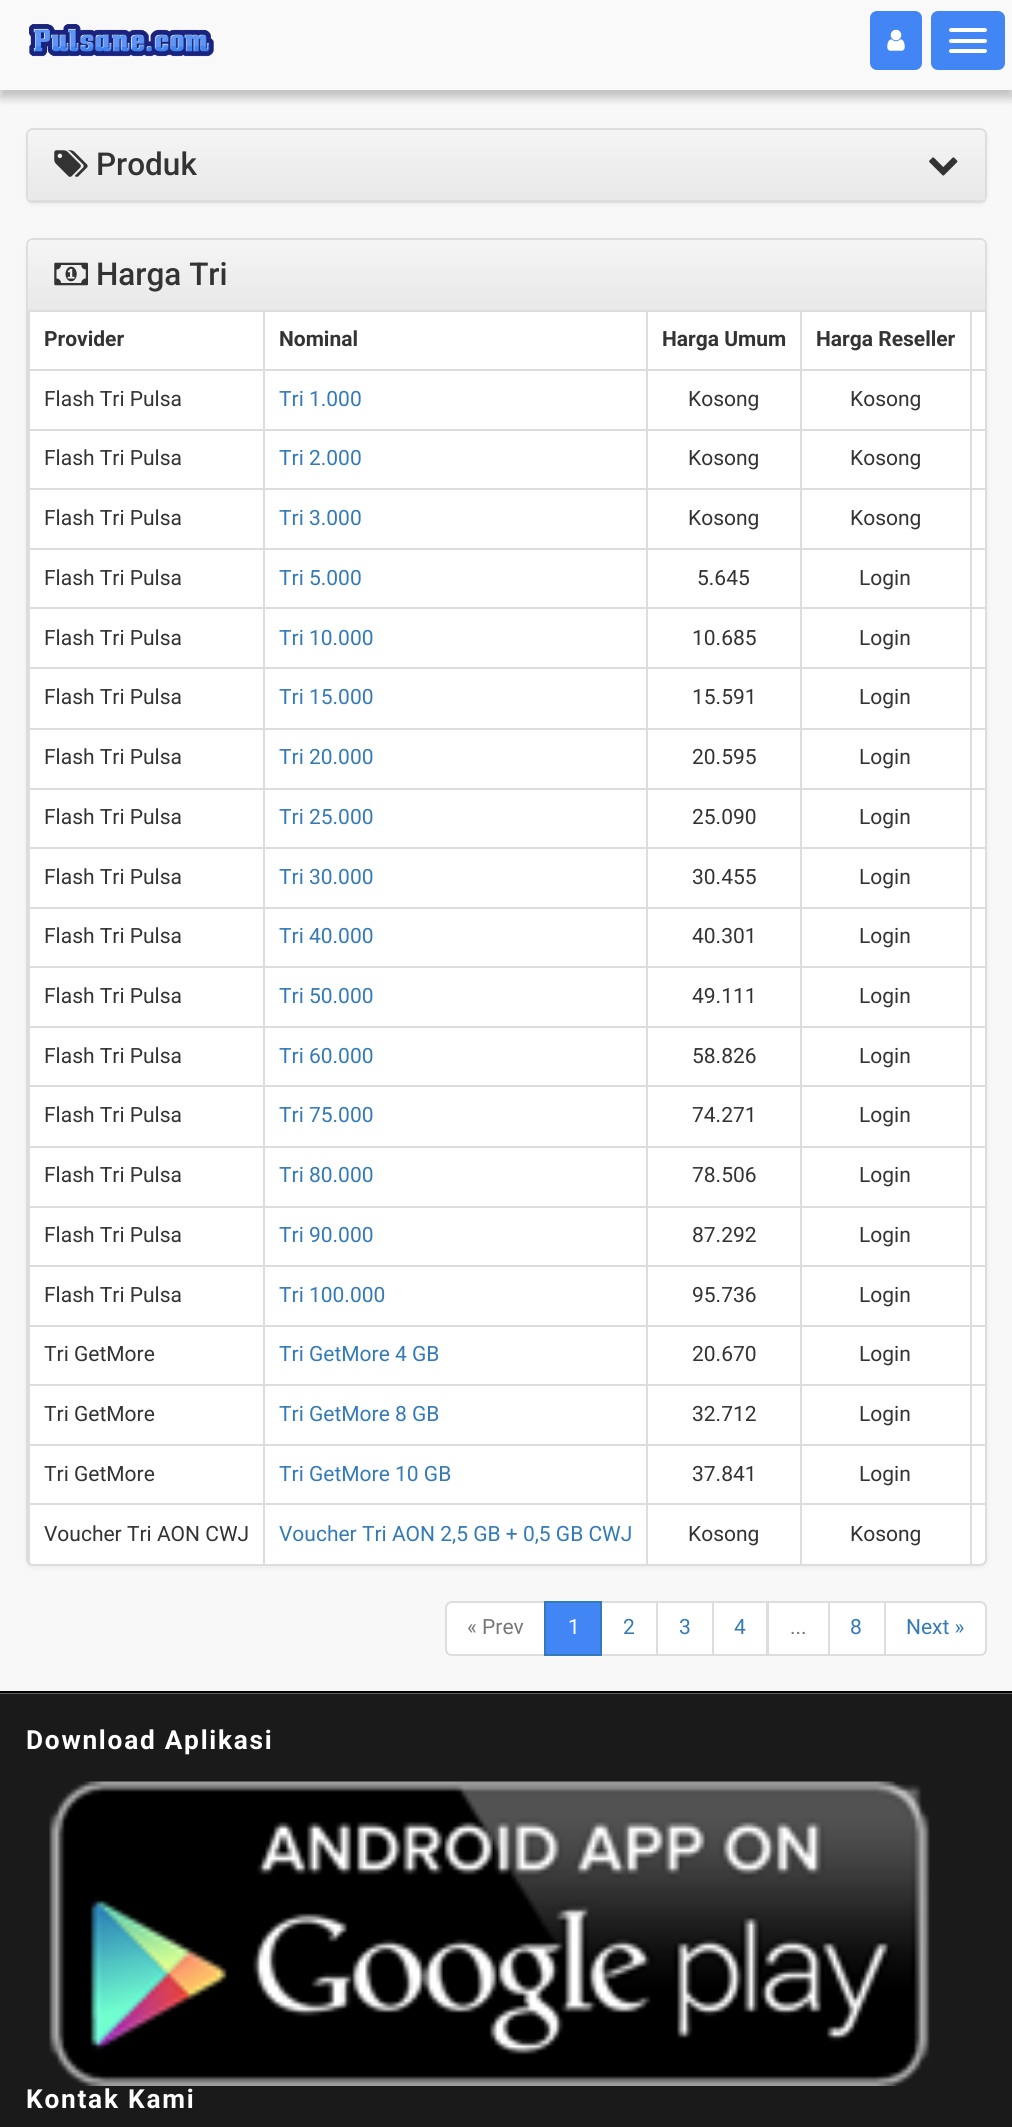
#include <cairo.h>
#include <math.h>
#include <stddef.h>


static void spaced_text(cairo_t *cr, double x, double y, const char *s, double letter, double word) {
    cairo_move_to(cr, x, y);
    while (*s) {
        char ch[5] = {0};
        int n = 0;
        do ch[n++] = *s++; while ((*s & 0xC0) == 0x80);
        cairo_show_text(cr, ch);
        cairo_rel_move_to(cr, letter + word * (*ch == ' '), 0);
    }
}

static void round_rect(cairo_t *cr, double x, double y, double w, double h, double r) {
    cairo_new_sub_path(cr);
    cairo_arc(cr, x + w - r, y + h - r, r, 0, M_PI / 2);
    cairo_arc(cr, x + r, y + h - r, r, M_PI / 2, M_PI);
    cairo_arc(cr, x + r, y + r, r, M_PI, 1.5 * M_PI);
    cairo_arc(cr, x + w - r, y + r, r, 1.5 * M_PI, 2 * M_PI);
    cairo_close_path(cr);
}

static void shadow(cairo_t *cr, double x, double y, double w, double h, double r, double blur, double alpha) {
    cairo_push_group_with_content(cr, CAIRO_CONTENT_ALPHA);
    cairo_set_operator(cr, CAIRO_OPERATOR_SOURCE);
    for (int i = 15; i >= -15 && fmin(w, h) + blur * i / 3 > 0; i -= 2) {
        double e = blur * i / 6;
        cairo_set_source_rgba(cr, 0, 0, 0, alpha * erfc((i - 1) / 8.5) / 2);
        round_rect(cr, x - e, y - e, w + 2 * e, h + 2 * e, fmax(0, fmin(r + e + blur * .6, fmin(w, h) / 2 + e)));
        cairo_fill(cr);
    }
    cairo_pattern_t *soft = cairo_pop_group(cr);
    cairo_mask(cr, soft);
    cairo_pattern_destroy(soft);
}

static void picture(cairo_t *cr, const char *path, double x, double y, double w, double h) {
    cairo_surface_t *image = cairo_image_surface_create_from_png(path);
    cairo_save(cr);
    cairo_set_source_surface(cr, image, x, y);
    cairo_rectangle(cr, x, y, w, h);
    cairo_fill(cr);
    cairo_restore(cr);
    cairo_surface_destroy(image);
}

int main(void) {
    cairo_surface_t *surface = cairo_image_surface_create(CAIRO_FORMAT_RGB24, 1012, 2127);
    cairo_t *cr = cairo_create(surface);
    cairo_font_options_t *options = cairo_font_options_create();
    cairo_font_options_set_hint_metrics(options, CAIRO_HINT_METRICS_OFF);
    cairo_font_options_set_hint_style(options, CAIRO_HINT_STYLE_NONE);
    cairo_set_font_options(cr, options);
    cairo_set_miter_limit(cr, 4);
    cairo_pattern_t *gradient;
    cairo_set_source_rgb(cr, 0.969, 0.969, 0.969);
    cairo_paint(cr);
    cairo_set_source_rgb(cr, 0, 0, 0);
    shadow(cr, 0, 4, 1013, 89, 0, 9, 0.12);
    shadow(cr, 0, 9, 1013, 89, 0, 4.5, 0.16);
    cairo_set_source_rgb(cr, 0.973, 0.973, 0.973);
    cairo_rectangle(cr, 0, 0, 1012, 90);
    cairo_fill(cr);
    picture(cr, "img1.png", 29, 24, 185, 33);
    cairo_set_source_rgb(cr, 0.259, 0.522, 0.957);
    round_rect(cr, 870, 11, 52, 59, 7);
    cairo_fill(cr);
    picture(cr, "img2.png", 887, 29, 18, 22);
    round_rect(cr, 931, 11, 74, 59, 7);
    cairo_fill(cr);
    cairo_set_source_rgb(cr, 1, 1, 1);
    round_rect(cr, 949, 28, 38, 4, 2);
    cairo_fill(cr);
    round_rect(cr, 949, 39, 38, 4, 2);
    cairo_fill(cr);
    round_rect(cr, 949, 49, 38, 4, 2);
    cairo_fill(cr);
    cairo_set_source_rgb(cr, 0, 0, 0);
    shadow(cr, 26, 130, 961, 75, 7, 2, 0.05);
    round_rect(cr, 27, 129, 959, 73, 6);
    cairo_set_source_rgb(cr, 0.867, 0.867, 0.867);
    cairo_stroke(cr);
    gradient = cairo_pattern_create_linear(507, 129, 507, 200);
    cairo_pattern_add_color_stop_rgba(gradient, 0, 0.961, 0.961, 0.961, 1);
    cairo_pattern_add_color_stop_rgba(gradient, 1, 0.91, 0.91, 0.91, 1);
    cairo_set_source(cr, gradient);
    cairo_pattern_destroy(gradient);
    cairo_new_path(cr);
    cairo_move_to(cr, 33, 130);
    cairo_line_to(cr, 980, 130);
    cairo_curve_to(cr, 983, 130, 985, 132, 985, 135);
    cairo_line_to(cr, 985, 200);
    cairo_line_to(cr, 28, 200);
    cairo_line_to(cr, 28, 135);
    cairo_curve_to(cr, 28, 132, 30, 130, 33, 130);
    cairo_close_path(cr);
    cairo_fill(cr);
    cairo_set_source_rgb(cr, 0.867, 0.867, 0.867);
    cairo_rectangle(cr, 28, 200, 957, 2);
    cairo_fill(cr);
    picture(cr, "img3.png", 54, 150, 34, 27);
    cairo_select_font_face(cr, "Roboto Medium", CAIRO_FONT_SLANT_NORMAL, CAIRO_FONT_WEIGHT_NORMAL);
    cairo_set_font_size(cr, 31.5);
    cairo_set_source_rgb(cr, 0.2, 0.2, 0.2);
    cairo_move_to(cr, 96, 175);
    cairo_show_text(cr, "Produk");
    picture(cr, "img4.png", 929, 157, 29, 19);
    cairo_set_source_rgb(cr, 0, 0, 0);
    shadow(cr, 26, 240, 961, 1328, 7, 2, 0.05);
    cairo_set_source_rgb(cr, 1, 1, 1);
    round_rect(cr, 27, 239, 959, 1326, 6);
    cairo_fill_preserve(cr);
    cairo_set_source_rgb(cr, 0.867, 0.867, 0.867);
    cairo_stroke(cr);
    gradient = cairo_pattern_create_linear(507, 240, 507, 310);
    cairo_pattern_add_color_stop_rgba(gradient, 0, 0.961, 0.961, 0.961, 1);
    cairo_pattern_add_color_stop_rgba(gradient, 1, 0.91, 0.91, 0.91, 1);
    cairo_set_source(cr, gradient);
    cairo_pattern_destroy(gradient);
    cairo_new_path(cr);
    cairo_move_to(cr, 33, 240);
    cairo_line_to(cr, 980, 240);
    cairo_curve_to(cr, 983, 240, 985, 242, 985, 245);
    cairo_line_to(cr, 985, 310);
    cairo_line_to(cr, 28, 310);
    cairo_line_to(cr, 28, 245);
    cairo_curve_to(cr, 28, 242, 30, 240, 33, 240);
    cairo_close_path(cr);
    cairo_fill(cr);
    cairo_set_source_rgb(cr, 0.867, 0.867, 0.867);
    cairo_rectangle(cr, 28, 310, 957, 2);
    cairo_fill(cr);
    picture(cr, "img5.png", 54, 262, 34, 24);
    cairo_set_source_rgb(cr, 0.2, 0.2, 0.2);
    cairo_move_to(cr, 96, 285);
    cairo_show_text(cr, "Harga Tri");
    cairo_select_font_face(cr, "Roboto", CAIRO_FONT_SLANT_NORMAL, CAIRO_FONT_WEIGHT_BOLD);
    cairo_set_font_size(cr, 21);
    cairo_move_to(cr, 44, 346);
    cairo_show_text(cr, "Provider");
    cairo_set_source_rgb(cr, 0.867, 0.867, 0.867);
    cairo_rectangle(cr, 970, 369, 15, 2);
    cairo_fill(cr);
    cairo_rectangle(cr, 970, 429, 15, 2);
    cairo_fill(cr);
    cairo_rectangle(cr, 970, 488, 15, 2);
    cairo_fill(cr);
    cairo_rectangle(cr, 970, 548, 15, 2);
    cairo_fill(cr);
    cairo_rectangle(cr, 970, 607, 15, 2);
    cairo_fill(cr);
    cairo_rectangle(cr, 970, 667, 15, 2);
    cairo_fill(cr);
    cairo_rectangle(cr, 970, 728, 15, 2);
    cairo_fill(cr);
    cairo_rectangle(cr, 970, 788, 15, 2);
    cairo_fill(cr);
    cairo_rectangle(cr, 970, 847, 15, 2);
    cairo_fill(cr);
    cairo_rectangle(cr, 970, 907, 15, 2);
    cairo_fill(cr);
    cairo_rectangle(cr, 970, 966, 15, 2);
    cairo_fill(cr);
    cairo_rectangle(cr, 970, 1026, 15, 2);
    cairo_fill(cr);
    cairo_rectangle(cr, 970, 1085, 15, 2);
    cairo_fill(cr);
    cairo_rectangle(cr, 970, 1146, 15, 2);
    cairo_fill(cr);
    cairo_rectangle(cr, 970, 1206, 15, 2);
    cairo_fill(cr);
    cairo_rectangle(cr, 970, 1265, 15, 2);
    cairo_fill(cr);
    cairo_rectangle(cr, 970, 1325, 15, 2);
    cairo_fill(cr);
    cairo_rectangle(cr, 970, 1384, 15, 2);
    cairo_fill(cr);
    cairo_rectangle(cr, 970, 1444, 15, 2);
    cairo_fill(cr);
    cairo_rectangle(cr, 970, 1503, 15, 2);
    cairo_fill(cr);
    cairo_rectangle(cr, 970, 1503, 2, 62);
    cairo_fill(cr);
    cairo_rectangle(cr, 800, 1503, 171, 2);
    cairo_fill(cr);
    cairo_rectangle(cr, 970, 1444, 2, 61);
    cairo_fill(cr);
    cairo_rectangle(cr, 800, 1444, 171, 2);
    cairo_fill(cr);
    cairo_rectangle(cr, 970, 1384, 2, 62);
    cairo_fill(cr);
    cairo_rectangle(cr, 800, 1384, 171, 2);
    cairo_fill(cr);
    cairo_rectangle(cr, 970, 1325, 2, 61);
    cairo_fill(cr);
    cairo_rectangle(cr, 800, 1325, 171, 2);
    cairo_fill(cr);
    cairo_rectangle(cr, 970, 1265, 2, 62);
    cairo_fill(cr);
    cairo_rectangle(cr, 800, 1265, 171, 2);
    cairo_fill(cr);
    cairo_rectangle(cr, 970, 1206, 2, 61);
    cairo_fill(cr);
    cairo_rectangle(cr, 800, 1206, 171, 2);
    cairo_fill(cr);
    cairo_rectangle(cr, 970, 1146, 2, 62);
    cairo_fill(cr);
    cairo_rectangle(cr, 800, 1146, 171, 2);
    cairo_fill(cr);
    cairo_rectangle(cr, 970, 1085, 2, 63);
    cairo_fill(cr);
    cairo_rectangle(cr, 800, 1085, 171, 2);
    cairo_fill(cr);
    cairo_rectangle(cr, 970, 1026, 2, 61);
    cairo_fill(cr);
    cairo_rectangle(cr, 800, 1026, 171, 2);
    cairo_fill(cr);
    cairo_rectangle(cr, 970, 966, 2, 61);
    cairo_fill(cr);
    cairo_rectangle(cr, 800, 966, 171, 2);
    cairo_fill(cr);
    cairo_rectangle(cr, 970, 907, 2, 61);
    cairo_fill(cr);
    cairo_rectangle(cr, 800, 907, 171, 2);
    cairo_fill(cr);
    cairo_rectangle(cr, 970, 847, 2, 61);
    cairo_fill(cr);
    cairo_rectangle(cr, 800, 847, 171, 2);
    cairo_fill(cr);
    cairo_rectangle(cr, 970, 788, 2, 61);
    cairo_fill(cr);
    cairo_rectangle(cr, 800, 788, 171, 2);
    cairo_fill(cr);
    cairo_rectangle(cr, 970, 728, 2, 61);
    cairo_fill(cr);
    cairo_rectangle(cr, 800, 728, 171, 2);
    cairo_fill(cr);
    cairo_rectangle(cr, 970, 667, 2, 63);
    cairo_fill(cr);
    cairo_rectangle(cr, 800, 667, 171, 2);
    cairo_fill(cr);
    cairo_rectangle(cr, 970, 607, 2, 62);
    cairo_fill(cr);
    cairo_rectangle(cr, 800, 607, 171, 2);
    cairo_fill(cr);
    cairo_rectangle(cr, 970, 548, 2, 61);
    cairo_fill(cr);
    cairo_rectangle(cr, 800, 548, 171, 2);
    cairo_fill(cr);
    cairo_rectangle(cr, 970, 488, 2, 62);
    cairo_fill(cr);
    cairo_rectangle(cr, 800, 488, 171, 2);
    cairo_fill(cr);
    cairo_rectangle(cr, 970, 429, 2, 61);
    cairo_fill(cr);
    cairo_rectangle(cr, 800, 429, 171, 2);
    cairo_fill(cr);
    cairo_rectangle(cr, 970, 369, 2, 62);
    cairo_fill(cr);
    cairo_rectangle(cr, 800, 369, 171, 2);
    cairo_fill(cr);
    cairo_rectangle(cr, 800, 1503, 2, 62);
    cairo_fill(cr);
    cairo_rectangle(cr, 646, 1503, 156, 2);
    cairo_fill(cr);
    cairo_rectangle(cr, 800, 1444, 2, 61);
    cairo_fill(cr);
    cairo_rectangle(cr, 646, 1444, 156, 2);
    cairo_fill(cr);
    cairo_rectangle(cr, 800, 1384, 2, 62);
    cairo_fill(cr);
    cairo_rectangle(cr, 646, 1384, 156, 2);
    cairo_fill(cr);
    cairo_rectangle(cr, 800, 1325, 2, 61);
    cairo_fill(cr);
    cairo_rectangle(cr, 646, 1325, 156, 2);
    cairo_fill(cr);
    cairo_rectangle(cr, 800, 1265, 2, 62);
    cairo_fill(cr);
    cairo_rectangle(cr, 646, 1265, 156, 2);
    cairo_fill(cr);
    cairo_rectangle(cr, 800, 1206, 2, 61);
    cairo_fill(cr);
    cairo_rectangle(cr, 646, 1206, 156, 2);
    cairo_fill(cr);
    cairo_rectangle(cr, 800, 1146, 2, 62);
    cairo_fill(cr);
    cairo_rectangle(cr, 646, 1146, 156, 2);
    cairo_fill(cr);
    cairo_rectangle(cr, 800, 1085, 2, 63);
    cairo_fill(cr);
    cairo_rectangle(cr, 646, 1085, 156, 2);
    cairo_fill(cr);
    cairo_rectangle(cr, 800, 1026, 2, 61);
    cairo_fill(cr);
    cairo_rectangle(cr, 646, 1026, 156, 2);
    cairo_fill(cr);
    cairo_rectangle(cr, 800, 966, 2, 61);
    cairo_fill(cr);
    cairo_rectangle(cr, 646, 966, 156, 2);
    cairo_fill(cr);
    cairo_rectangle(cr, 800, 907, 2, 61);
    cairo_fill(cr);
    cairo_rectangle(cr, 646, 907, 156, 2);
    cairo_fill(cr);
    cairo_rectangle(cr, 800, 847, 2, 61);
    cairo_fill(cr);
    cairo_rectangle(cr, 646, 847, 156, 2);
    cairo_fill(cr);
    cairo_rectangle(cr, 800, 788, 2, 61);
    cairo_fill(cr);
    cairo_rectangle(cr, 646, 788, 156, 2);
    cairo_fill(cr);
    cairo_rectangle(cr, 800, 728, 2, 61);
    cairo_fill(cr);
    cairo_rectangle(cr, 646, 728, 156, 2);
    cairo_fill(cr);
    cairo_rectangle(cr, 800, 667, 2, 63);
    cairo_fill(cr);
    cairo_rectangle(cr, 646, 667, 156, 2);
    cairo_fill(cr);
    cairo_rectangle(cr, 800, 607, 2, 62);
    cairo_fill(cr);
    cairo_rectangle(cr, 646, 607, 156, 2);
    cairo_fill(cr);
    cairo_rectangle(cr, 800, 548, 2, 61);
    cairo_fill(cr);
    cairo_rectangle(cr, 646, 548, 156, 2);
    cairo_fill(cr);
    cairo_rectangle(cr, 800, 488, 2, 62);
    cairo_fill(cr);
    cairo_rectangle(cr, 646, 488, 156, 2);
    cairo_fill(cr);
    cairo_rectangle(cr, 800, 429, 2, 61);
    cairo_fill(cr);
    cairo_rectangle(cr, 646, 429, 156, 2);
    cairo_fill(cr);
    cairo_rectangle(cr, 800, 369, 2, 62);
    cairo_fill(cr);
    cairo_rectangle(cr, 646, 369, 156, 2);
    cairo_fill(cr);
    cairo_rectangle(cr, 646, 1503, 2, 62);
    cairo_fill(cr);
    cairo_rectangle(cr, 263, 1503, 385, 2);
    cairo_fill(cr);
    cairo_rectangle(cr, 646, 1444, 2, 61);
    cairo_fill(cr);
    cairo_rectangle(cr, 263, 1444, 385, 2);
    cairo_fill(cr);
    cairo_rectangle(cr, 646, 1384, 2, 62);
    cairo_fill(cr);
    cairo_rectangle(cr, 263, 1384, 385, 2);
    cairo_fill(cr);
    cairo_rectangle(cr, 646, 1325, 2, 61);
    cairo_fill(cr);
    cairo_rectangle(cr, 263, 1325, 385, 2);
    cairo_fill(cr);
    cairo_rectangle(cr, 646, 1265, 2, 62);
    cairo_fill(cr);
    cairo_rectangle(cr, 263, 1265, 385, 2);
    cairo_fill(cr);
    cairo_rectangle(cr, 646, 1206, 2, 61);
    cairo_fill(cr);
    cairo_rectangle(cr, 263, 1206, 385, 2);
    cairo_fill(cr);
    cairo_rectangle(cr, 646, 1146, 2, 62);
    cairo_fill(cr);
    cairo_rectangle(cr, 263, 1146, 385, 2);
    cairo_fill(cr);
    cairo_rectangle(cr, 646, 1085, 2, 63);
    cairo_fill(cr);
    cairo_rectangle(cr, 263, 1085, 385, 2);
    cairo_fill(cr);
    cairo_rectangle(cr, 646, 1026, 2, 61);
    cairo_fill(cr);
    cairo_rectangle(cr, 263, 1026, 385, 2);
    cairo_fill(cr);
    cairo_rectangle(cr, 646, 966, 2, 61);
    cairo_fill(cr);
    cairo_rectangle(cr, 263, 966, 385, 2);
    cairo_fill(cr);
    cairo_rectangle(cr, 646, 907, 2, 61);
    cairo_fill(cr);
    cairo_rectangle(cr, 263, 907, 385, 2);
    cairo_fill(cr);
    cairo_rectangle(cr, 646, 847, 2, 61);
    cairo_fill(cr);
    cairo_rectangle(cr, 263, 847, 385, 2);
    cairo_fill(cr);
    cairo_rectangle(cr, 646, 788, 2, 61);
    cairo_fill(cr);
    cairo_rectangle(cr, 263, 788, 385, 2);
    cairo_fill(cr);
    cairo_rectangle(cr, 646, 728, 2, 61);
    cairo_fill(cr);
    cairo_rectangle(cr, 263, 728, 385, 2);
    cairo_fill(cr);
    cairo_rectangle(cr, 646, 667, 2, 63);
    cairo_fill(cr);
    cairo_rectangle(cr, 263, 667, 385, 2);
    cairo_fill(cr);
    cairo_rectangle(cr, 646, 607, 2, 62);
    cairo_fill(cr);
    cairo_rectangle(cr, 263, 607, 385, 2);
    cairo_fill(cr);
    cairo_rectangle(cr, 646, 548, 2, 61);
    cairo_fill(cr);
    cairo_rectangle(cr, 263, 548, 385, 2);
    cairo_fill(cr);
    cairo_rectangle(cr, 646, 488, 2, 62);
    cairo_fill(cr);
    cairo_rectangle(cr, 263, 488, 385, 2);
    cairo_fill(cr);
    cairo_rectangle(cr, 646, 429, 2, 61);
    cairo_fill(cr);
    cairo_rectangle(cr, 263, 429, 385, 2);
    cairo_fill(cr);
    cairo_rectangle(cr, 646, 369, 2, 62);
    cairo_fill(cr);
    cairo_rectangle(cr, 263, 369, 385, 2);
    cairo_fill(cr);
    cairo_rectangle(cr, 263, 1503, 2, 62);
    cairo_fill(cr);
    cairo_rectangle(cr, 28, 1503, 236, 2);
    cairo_fill(cr);
    cairo_rectangle(cr, 263, 1444, 2, 61);
    cairo_fill(cr);
    cairo_rectangle(cr, 28, 1444, 236, 2);
    cairo_fill(cr);
    cairo_rectangle(cr, 263, 1384, 2, 62);
    cairo_fill(cr);
    cairo_rectangle(cr, 28, 1384, 236, 2);
    cairo_fill(cr);
    cairo_rectangle(cr, 263, 1325, 2, 61);
    cairo_fill(cr);
    cairo_rectangle(cr, 28, 1325, 236, 2);
    cairo_fill(cr);
    cairo_rectangle(cr, 263, 1265, 2, 62);
    cairo_fill(cr);
    cairo_rectangle(cr, 28, 1265, 236, 2);
    cairo_fill(cr);
    cairo_rectangle(cr, 263, 1206, 2, 61);
    cairo_fill(cr);
    cairo_rectangle(cr, 28, 1206, 236, 2);
    cairo_fill(cr);
    cairo_rectangle(cr, 263, 1146, 2, 62);
    cairo_fill(cr);
    cairo_rectangle(cr, 28, 1146, 236, 2);
    cairo_fill(cr);
    cairo_rectangle(cr, 263, 1085, 2, 63);
    cairo_fill(cr);
    cairo_rectangle(cr, 28, 1085, 236, 2);
    cairo_fill(cr);
    cairo_rectangle(cr, 263, 1026, 2, 61);
    cairo_fill(cr);
    cairo_rectangle(cr, 28, 1026, 236, 2);
    cairo_fill(cr);
    cairo_rectangle(cr, 263, 966, 2, 61);
    cairo_fill(cr);
    cairo_rectangle(cr, 28, 966, 236, 2);
    cairo_fill(cr);
    cairo_rectangle(cr, 263, 907, 2, 61);
    cairo_fill(cr);
    cairo_rectangle(cr, 28, 907, 236, 2);
    cairo_fill(cr);
    cairo_rectangle(cr, 263, 847, 2, 61);
    cairo_fill(cr);
    cairo_rectangle(cr, 28, 847, 236, 2);
    cairo_fill(cr);
    cairo_rectangle(cr, 263, 788, 2, 61);
    cairo_fill(cr);
    cairo_rectangle(cr, 28, 788, 236, 2);
    cairo_fill(cr);
    cairo_rectangle(cr, 263, 728, 2, 61);
    cairo_fill(cr);
    cairo_rectangle(cr, 28, 728, 236, 2);
    cairo_fill(cr);
    cairo_rectangle(cr, 263, 667, 2, 63);
    cairo_fill(cr);
    cairo_rectangle(cr, 28, 667, 236, 2);
    cairo_fill(cr);
    cairo_rectangle(cr, 263, 607, 2, 62);
    cairo_fill(cr);
    cairo_rectangle(cr, 28, 607, 236, 2);
    cairo_fill(cr);
    cairo_rectangle(cr, 263, 548, 2, 61);
    cairo_fill(cr);
    cairo_rectangle(cr, 28, 548, 236, 2);
    cairo_fill(cr);
    cairo_rectangle(cr, 263, 488, 2, 62);
    cairo_fill(cr);
    cairo_rectangle(cr, 28, 488, 236, 2);
    cairo_fill(cr);
    cairo_rectangle(cr, 263, 429, 2, 61);
    cairo_fill(cr);
    cairo_rectangle(cr, 28, 429, 236, 2);
    cairo_fill(cr);
    cairo_rectangle(cr, 263, 369, 2, 62);
    cairo_fill(cr);
    cairo_rectangle(cr, 28, 369, 236, 2);
    cairo_fill(cr);
    cairo_rectangle(cr, 263, 312, 2, 59);
    cairo_fill(cr);
    cairo_set_source_rgb(cr, 0.2, 0.2, 0.2);
    cairo_move_to(cr, 279, 346);
    cairo_show_text(cr, "Nominal");
    cairo_set_source_rgb(cr, 0.867, 0.867, 0.867);
    cairo_rectangle(cr, 646, 312, 2, 59);
    cairo_fill(cr);
    cairo_set_source_rgb(cr, 0.2, 0.2, 0.2);
    cairo_move_to(cr, 662, 346);
    cairo_show_text(cr, "Harga Umum");
    cairo_set_source_rgb(cr, 0.867, 0.867, 0.867);
    cairo_rectangle(cr, 800, 312, 2, 59);
    cairo_fill(cr);
    cairo_set_source_rgb(cr, 0.2, 0.2, 0.2);
    cairo_move_to(cr, 816, 346);
    cairo_show_text(cr, "Harga Reseller");
    cairo_set_source_rgb(cr, 0.867, 0.867, 0.867);
    cairo_rectangle(cr, 970, 312, 2, 59);
    cairo_fill(cr);
    cairo_rectangle(cr, 28, 1503, 2, 62);
    cairo_fill(cr);
    cairo_rectangle(cr, 28, 1444, 2, 61);
    cairo_fill(cr);
    cairo_rectangle(cr, 28, 1384, 2, 62);
    cairo_fill(cr);
    cairo_rectangle(cr, 28, 1325, 2, 61);
    cairo_fill(cr);
    cairo_rectangle(cr, 28, 1265, 2, 62);
    cairo_fill(cr);
    cairo_rectangle(cr, 28, 1206, 2, 61);
    cairo_fill(cr);
    cairo_rectangle(cr, 28, 1146, 2, 62);
    cairo_fill(cr);
    cairo_rectangle(cr, 28, 1085, 2, 63);
    cairo_fill(cr);
    cairo_rectangle(cr, 28, 1026, 2, 61);
    cairo_fill(cr);
    cairo_rectangle(cr, 28, 966, 2, 61);
    cairo_fill(cr);
    cairo_rectangle(cr, 28, 907, 2, 61);
    cairo_fill(cr);
    cairo_rectangle(cr, 28, 847, 2, 61);
    cairo_fill(cr);
    cairo_rectangle(cr, 28, 788, 2, 61);
    cairo_fill(cr);
    cairo_rectangle(cr, 28, 728, 2, 61);
    cairo_fill(cr);
    cairo_rectangle(cr, 28, 667, 2, 63);
    cairo_fill(cr);
    cairo_rectangle(cr, 28, 607, 2, 62);
    cairo_fill(cr);
    cairo_rectangle(cr, 28, 548, 2, 61);
    cairo_fill(cr);
    cairo_rectangle(cr, 28, 488, 2, 62);
    cairo_fill(cr);
    cairo_rectangle(cr, 28, 429, 2, 61);
    cairo_fill(cr);
    cairo_rectangle(cr, 28, 312, 2, 119);
    cairo_fill(cr);
    cairo_select_font_face(cr, "Roboto", CAIRO_FONT_SLANT_NORMAL, CAIRO_FONT_WEIGHT_NORMAL);
    cairo_set_source_rgb(cr, 0.2, 0.2, 0.2);
    cairo_move_to(cr, 44, 406);
    cairo_show_text(cr, "Flash Tri Pulsa");
    cairo_set_source_rgb(cr, 0.2, 0.478, 0.718);
    cairo_move_to(cr, 279, 406);
    cairo_show_text(cr, "Tri 1.000");
    cairo_set_source_rgb(cr, 0.2, 0.2, 0.2);
    cairo_move_to(cr, 688, 406);
    cairo_show_text(cr, "Kosong");
    cairo_move_to(cr, 850, 406);
    cairo_show_text(cr, "Kosong");
    cairo_move_to(cr, 44, 465);
    cairo_show_text(cr, "Flash Tri Pulsa");
    cairo_set_source_rgb(cr, 0.2, 0.478, 0.718);
    cairo_move_to(cr, 279, 465);
    cairo_show_text(cr, "Tri 2.000");
    cairo_set_source_rgb(cr, 0.2, 0.2, 0.2);
    cairo_move_to(cr, 688, 465);
    cairo_show_text(cr, "Kosong");
    cairo_move_to(cr, 850, 465);
    cairo_show_text(cr, "Kosong");
    cairo_move_to(cr, 44, 525);
    cairo_show_text(cr, "Flash Tri Pulsa");
    cairo_set_source_rgb(cr, 0.2, 0.478, 0.718);
    cairo_move_to(cr, 279, 525);
    cairo_show_text(cr, "Tri 3.000");
    cairo_set_source_rgb(cr, 0.2, 0.2, 0.2);
    cairo_move_to(cr, 688, 525);
    cairo_show_text(cr, "Kosong");
    cairo_move_to(cr, 850, 525);
    cairo_show_text(cr, "Kosong");
    cairo_move_to(cr, 44, 585);
    cairo_show_text(cr, "Flash Tri Pulsa");
    cairo_set_source_rgb(cr, 0.2, 0.478, 0.718);
    cairo_move_to(cr, 279, 585);
    cairo_show_text(cr, "Tri 5.000");
    cairo_set_source_rgb(cr, 0.2, 0.2, 0.2);
    cairo_move_to(cr, 697, 585);
    cairo_show_text(cr, "5.645");
    cairo_move_to(cr, 859, 585);
    cairo_show_text(cr, "Login");
    cairo_move_to(cr, 44, 645);
    cairo_show_text(cr, "Flash Tri Pulsa");
    cairo_set_source_rgb(cr, 0.2, 0.478, 0.718);
    cairo_move_to(cr, 279, 645);
    cairo_show_text(cr, "Tri 10.000");
    cairo_set_source_rgb(cr, 0.2, 0.2, 0.2);
    cairo_move_to(cr, 692, 645);
    cairo_show_text(cr, "10.685");
    cairo_move_to(cr, 859, 645);
    cairo_show_text(cr, "Login");
    cairo_move_to(cr, 44, 704);
    cairo_show_text(cr, "Flash Tri Pulsa");
    cairo_set_source_rgb(cr, 0.2, 0.478, 0.718);
    cairo_move_to(cr, 279, 704);
    cairo_show_text(cr, "Tri 15.000");
    cairo_set_source_rgb(cr, 0.2, 0.2, 0.2);
    cairo_move_to(cr, 692, 704);
    cairo_show_text(cr, "15.591");
    cairo_move_to(cr, 859, 704);
    cairo_show_text(cr, "Login");
    cairo_move_to(cr, 44, 764);
    cairo_show_text(cr, "Flash Tri Pulsa");
    cairo_set_source_rgb(cr, 0.2, 0.478, 0.718);
    cairo_move_to(cr, 279, 764);
    cairo_show_text(cr, "Tri 20.000");
    cairo_set_source_rgb(cr, 0.2, 0.2, 0.2);
    cairo_move_to(cr, 692, 764);
    cairo_show_text(cr, "20.595");
    cairo_move_to(cr, 859, 764);
    cairo_show_text(cr, "Login");
    cairo_move_to(cr, 44, 824);
    cairo_show_text(cr, "Flash Tri Pulsa");
    cairo_set_source_rgb(cr, 0.2, 0.478, 0.718);
    cairo_move_to(cr, 279, 824);
    cairo_show_text(cr, "Tri 25.000");
    cairo_set_source_rgb(cr, 0.2, 0.2, 0.2);
    cairo_move_to(cr, 692, 824);
    cairo_show_text(cr, "25.090");
    cairo_move_to(cr, 859, 824);
    cairo_show_text(cr, "Login");
    cairo_move_to(cr, 44, 884);
    cairo_show_text(cr, "Flash Tri Pulsa");
    cairo_set_source_rgb(cr, 0.2, 0.478, 0.718);
    cairo_move_to(cr, 279, 884);
    cairo_show_text(cr, "Tri 30.000");
    cairo_set_source_rgb(cr, 0.2, 0.2, 0.2);
    cairo_move_to(cr, 692, 884);
    cairo_show_text(cr, "30.455");
    cairo_move_to(cr, 859, 884);
    cairo_show_text(cr, "Login");
    cairo_move_to(cr, 44, 943);
    cairo_show_text(cr, "Flash Tri Pulsa");
    cairo_set_source_rgb(cr, 0.2, 0.478, 0.718);
    cairo_move_to(cr, 279, 943);
    cairo_show_text(cr, "Tri 40.000");
    cairo_set_source_rgb(cr, 0.2, 0.2, 0.2);
    cairo_move_to(cr, 692, 943);
    cairo_show_text(cr, "40.301");
    cairo_move_to(cr, 859, 943);
    cairo_show_text(cr, "Login");
    cairo_move_to(cr, 44, 1003);
    cairo_show_text(cr, "Flash Tri Pulsa");
    cairo_set_source_rgb(cr, 0.2, 0.478, 0.718);
    cairo_move_to(cr, 279, 1003);
    cairo_show_text(cr, "Tri 50.000");
    cairo_set_source_rgb(cr, 0.2, 0.2, 0.2);
    cairo_move_to(cr, 692, 1003);
    cairo_show_text(cr, "49.111");
    cairo_move_to(cr, 859, 1003);
    cairo_show_text(cr, "Login");
    cairo_move_to(cr, 44, 1063);
    cairo_show_text(cr, "Flash Tri Pulsa");
    cairo_set_source_rgb(cr, 0.2, 0.478, 0.718);
    cairo_move_to(cr, 279, 1063);
    cairo_show_text(cr, "Tri 60.000");
    cairo_set_source_rgb(cr, 0.2, 0.2, 0.2);
    cairo_move_to(cr, 692, 1063);
    cairo_show_text(cr, "58.826");
    cairo_move_to(cr, 859, 1063);
    cairo_show_text(cr, "Login");
    cairo_move_to(cr, 44, 1122);
    cairo_show_text(cr, "Flash Tri Pulsa");
    cairo_set_source_rgb(cr, 0.2, 0.478, 0.718);
    cairo_move_to(cr, 279, 1122);
    cairo_show_text(cr, "Tri 75.000");
    cairo_set_source_rgb(cr, 0.2, 0.2, 0.2);
    cairo_move_to(cr, 692, 1122);
    cairo_show_text(cr, "74.271");
    cairo_move_to(cr, 859, 1122);
    cairo_show_text(cr, "Login");
    cairo_move_to(cr, 44, 1182);
    cairo_show_text(cr, "Flash Tri Pulsa");
    cairo_set_source_rgb(cr, 0.2, 0.478, 0.718);
    cairo_move_to(cr, 279, 1182);
    cairo_show_text(cr, "Tri 80.000");
    cairo_set_source_rgb(cr, 0.2, 0.2, 0.2);
    cairo_move_to(cr, 692, 1182);
    cairo_show_text(cr, "78.506");
    cairo_move_to(cr, 859, 1182);
    cairo_show_text(cr, "Login");
    cairo_move_to(cr, 44, 1242);
    cairo_show_text(cr, "Flash Tri Pulsa");
    cairo_set_source_rgb(cr, 0.2, 0.478, 0.718);
    cairo_move_to(cr, 279, 1242);
    cairo_show_text(cr, "Tri 90.000");
    cairo_set_source_rgb(cr, 0.2, 0.2, 0.2);
    cairo_move_to(cr, 692, 1242);
    cairo_show_text(cr, "87.292");
    cairo_move_to(cr, 859, 1242);
    cairo_show_text(cr, "Login");
    cairo_move_to(cr, 44, 1302);
    cairo_show_text(cr, "Flash Tri Pulsa");
    cairo_set_source_rgb(cr, 0.2, 0.478, 0.718);
    cairo_move_to(cr, 279, 1302);
    cairo_show_text(cr, "Tri 100.000");
    cairo_set_source_rgb(cr, 0.2, 0.2, 0.2);
    cairo_move_to(cr, 692, 1302);
    cairo_show_text(cr, "95.736");
    cairo_move_to(cr, 859, 1302);
    cairo_show_text(cr, "Login");
    cairo_move_to(cr, 44, 1361);
    cairo_show_text(cr, "Tri GetMore");
    cairo_set_source_rgb(cr, 0.2, 0.478, 0.718);
    cairo_move_to(cr, 279, 1361);
    cairo_show_text(cr, "Tri GetMore 4 GB");
    cairo_set_source_rgb(cr, 0.2, 0.2, 0.2);
    cairo_move_to(cr, 692, 1361);
    cairo_show_text(cr, "20.670");
    cairo_move_to(cr, 859, 1361);
    cairo_show_text(cr, "Login");
    cairo_move_to(cr, 44, 1421);
    cairo_show_text(cr, "Tri GetMore");
    cairo_set_source_rgb(cr, 0.2, 0.478, 0.718);
    cairo_move_to(cr, 279, 1421);
    cairo_show_text(cr, "Tri GetMore 8 GB");
    cairo_set_source_rgb(cr, 0.2, 0.2, 0.2);
    cairo_move_to(cr, 692, 1421);
    cairo_show_text(cr, "32.712");
    cairo_move_to(cr, 859, 1421);
    cairo_show_text(cr, "Login");
    cairo_move_to(cr, 44, 1481);
    cairo_show_text(cr, "Tri GetMore");
    cairo_set_source_rgb(cr, 0.2, 0.478, 0.718);
    cairo_move_to(cr, 279, 1481);
    cairo_show_text(cr, "Tri GetMore 10 GB");
    cairo_set_source_rgb(cr, 0.2, 0.2, 0.2);
    cairo_move_to(cr, 692, 1481);
    cairo_show_text(cr, "37.841");
    cairo_move_to(cr, 859, 1481);
    cairo_show_text(cr, "Login");
    cairo_move_to(cr, 44, 1541);
    cairo_show_text(cr, "Voucher Tri AON CWJ");
    cairo_set_source_rgb(cr, 0.2, 0.478, 0.718);
    cairo_move_to(cr, 279, 1541);
    cairo_show_text(cr, "Voucher Tri AON 2,5 GB + 0,5 GB CWJ");
    cairo_set_source_rgb(cr, 0.2, 0.2, 0.2);
    cairo_move_to(cr, 688, 1541);
    cairo_show_text(cr, "Kosong");
    cairo_move_to(cr, 850, 1541);
    cairo_show_text(cr, "Kosong");
    cairo_set_source_rgb(cr, 1, 1, 1);
    cairo_new_path(cr);
    cairo_move_to(cr, 452, 1602);
    cairo_line_to(cr, 545, 1602);
    cairo_line_to(cr, 545, 1655);
    cairo_line_to(cr, 452, 1655);
    cairo_curve_to(cr, 448.5, 1655, 446, 1652.5, 446, 1649);
    cairo_line_to(cr, 446, 1608);
    cairo_curve_to(cr, 446, 1604.5, 448.5, 1602, 452, 1602);
    cairo_close_path(cr);
    cairo_fill_preserve(cr);
    cairo_set_source_rgb(cr, 0.867, 0.867, 0.867);
    cairo_stroke(cr);
    cairo_set_source_rgb(cr, 0.467, 0.467, 0.467);
    cairo_move_to(cr, 467, 1634);
    cairo_show_text(cr, "« Prev");
    cairo_set_source_rgb(cr, 1, 1, 1);
    cairo_rectangle(cr, 601, 1602, 56, 53);
    cairo_fill_preserve(cr);
    cairo_set_source_rgb(cr, 0.867, 0.867, 0.867);
    cairo_stroke(cr);
    cairo_set_source_rgb(cr, 0.259, 0.522, 0.957);
    cairo_rectangle(cr, 545, 1602, 56, 53);
    cairo_fill_preserve(cr);
    cairo_set_source_rgb(cr, 0.2, 0.478, 0.718);
    cairo_stroke(cr);
    cairo_set_source_rgb(cr, 1, 1, 1);
    cairo_move_to(cr, 568, 1634);
    cairo_show_text(cr, "1");
    cairo_set_source_rgb(cr, 0.2, 0.478, 0.718);
    cairo_move_to(cr, 623, 1634);
    cairo_show_text(cr, "2");
    cairo_set_source_rgb(cr, 1, 1, 1);
    cairo_rectangle(cr, 657, 1602, 56, 53);
    cairo_fill_preserve(cr);
    cairo_set_source_rgb(cr, 0.867, 0.867, 0.867);
    cairo_stroke(cr);
    cairo_set_source_rgb(cr, 0.2, 0.478, 0.718);
    cairo_move_to(cr, 679, 1634);
    cairo_show_text(cr, "3");
    cairo_set_source_rgb(cr, 1, 1, 1);
    cairo_rectangle(cr, 713, 1602, 54, 53);
    cairo_fill_preserve(cr);
    cairo_set_source_rgb(cr, 0.867, 0.867, 0.867);
    cairo_stroke(cr);
    cairo_set_source_rgb(cr, 0.2, 0.478, 0.718);
    cairo_move_to(cr, 734, 1634);
    cairo_show_text(cr, "4");
    cairo_set_source_rgb(cr, 1, 1, 1);
    cairo_rectangle(cr, 768, 1602, 61, 53);
    cairo_fill_preserve(cr);
    cairo_set_source_rgb(cr, 0.867, 0.867, 0.867);
    cairo_stroke(cr);
    cairo_set_source_rgb(cr, 0.467, 0.467, 0.467);
    cairo_move_to(cr, 790, 1634);
    cairo_show_text(cr, "...");
    cairo_set_source_rgb(cr, 1, 1, 1);
    cairo_rectangle(cr, 829, 1602, 56, 53);
    cairo_fill_preserve(cr);
    cairo_set_source_rgb(cr, 0.867, 0.867, 0.867);
    cairo_stroke(cr);
    cairo_set_source_rgb(cr, 0.2, 0.478, 0.718);
    cairo_move_to(cr, 850, 1634);
    cairo_show_text(cr, "8");
    cairo_set_source_rgb(cr, 1, 1, 1);
    cairo_new_path(cr);
    cairo_move_to(cr, 885, 1602);
    cairo_line_to(cr, 980, 1602);
    cairo_curve_to(cr, 983.5, 1602, 986, 1604.5, 986, 1608);
    cairo_line_to(cr, 986, 1649);
    cairo_curve_to(cr, 986, 1652.5, 983.5, 1655, 980, 1655);
    cairo_line_to(cr, 885, 1655);
    cairo_close_path(cr);
    cairo_fill_preserve(cr);
    cairo_set_source_rgb(cr, 0.867, 0.867, 0.867);
    cairo_stroke(cr);
    cairo_set_source_rgb(cr, 0.2, 0.478, 0.718);
    cairo_move_to(cr, 906, 1634);
    cairo_show_text(cr, "Next »");
    cairo_set_source_rgb(cr, 0.102, 0.102, 0.102);
    cairo_rectangle(cr, 0, 1694, 1012, 433);
    cairo_fill(cr);
    cairo_set_source_rgb(cr, 0.373, 0.373, 0.373);
    cairo_rectangle(cr, 0, 1693, 1012, 1);
    cairo_fill(cr);
    cairo_set_source_rgb(cr, 0, 0, 0);
    cairo_rectangle(cr, 0, 1691, 1012, 2);
    cairo_fill(cr);
    cairo_select_font_face(cr, "Roboto", CAIRO_FONT_SLANT_NORMAL, CAIRO_FONT_WEIGHT_BOLD);
    cairo_set_font_size(cr, 26.25);
    cairo_set_source_rgb(cr, 1, 1, 1);
    spaced_text(cr, 26, 1749, "Download Aplikasi", 1.75, 0);
    picture(cr, "img6.png", 49, 1781, 881, 305);
    spaced_text(cr, 26, 2108, "Kontak Kami", 1.75, 0);
    cairo_surface_write_to_png(surface, "page.png");
    cairo_font_options_destroy(options);
    cairo_destroy(cr);
    cairo_surface_destroy(surface);
    return 0;
}
